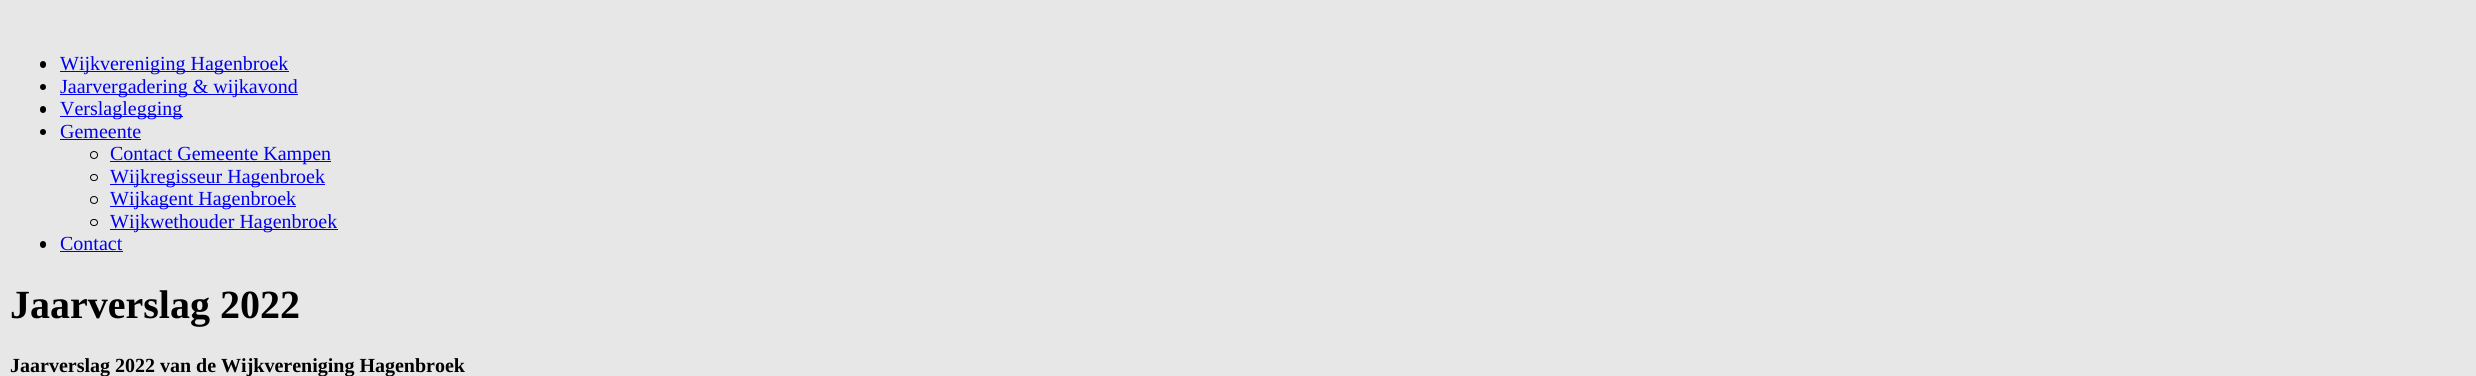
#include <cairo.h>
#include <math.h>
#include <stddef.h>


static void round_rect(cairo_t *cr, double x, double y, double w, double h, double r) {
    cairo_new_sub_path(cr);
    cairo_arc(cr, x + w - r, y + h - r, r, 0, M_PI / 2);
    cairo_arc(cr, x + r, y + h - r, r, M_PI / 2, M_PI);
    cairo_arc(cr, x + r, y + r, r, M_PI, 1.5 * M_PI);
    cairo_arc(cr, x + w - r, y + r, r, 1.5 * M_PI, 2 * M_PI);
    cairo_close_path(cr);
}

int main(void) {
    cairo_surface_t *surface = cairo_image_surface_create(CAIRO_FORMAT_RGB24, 2476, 376);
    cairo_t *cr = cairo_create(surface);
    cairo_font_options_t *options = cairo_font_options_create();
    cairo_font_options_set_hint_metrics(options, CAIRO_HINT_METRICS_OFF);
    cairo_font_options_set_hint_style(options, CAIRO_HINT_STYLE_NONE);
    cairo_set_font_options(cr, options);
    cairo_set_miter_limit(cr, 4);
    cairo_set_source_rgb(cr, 0.906, 0.906, 0.906);
    cairo_paint(cr);
    cairo_set_source_rgb(cr, 0, 0, 0);
    round_rect(cr, 40, 61, 6, 7, 3);
    cairo_fill(cr);
    cairo_set_source_rgb(cr, 0, 0, 0.933);
    cairo_rectangle(cr, 60, 71, 229, 1);
    cairo_fill(cr);
    cairo_select_font_face(cr, "Liberation Serif", CAIRO_FONT_SLANT_NORMAL, CAIRO_FONT_WEIGHT_NORMAL);
    cairo_set_font_size(cr, 20);
    cairo_move_to(cr, 60, 70);
    cairo_show_text(cr, "Wijkvereniging Hagenbroek");
    cairo_set_source_rgb(cr, 0, 0, 0);
    cairo_new_path(cr);
    cairo_arc(cr, 43, 87, 3, 0, 2 * M_PI);
    cairo_fill(cr);
    cairo_set_source_rgb(cr, 0, 0, 0.933);
    cairo_rectangle(cr, 60, 94, 238, 1);
    cairo_fill(cr);
    cairo_move_to(cr, 60, 93);
    cairo_show_text(cr, "Jaarvergadering & wijkavond");
    cairo_set_source_rgb(cr, 0, 0, 0);
    round_rect(cr, 40, 106, 6, 7, 3);
    cairo_fill(cr);
    cairo_set_source_rgb(cr, 0, 0, 0.933);
    cairo_rectangle(cr, 60, 116, 123, 1);
    cairo_fill(cr);
    cairo_move_to(cr, 60, 115);
    cairo_show_text(cr, "Verslaglegging");
    cairo_set_source_rgb(cr, 0, 0, 0);
    cairo_new_path(cr);
    cairo_arc(cr, 43, 132, 3, 0, 2 * M_PI);
    cairo_fill(cr);
    cairo_set_source_rgb(cr, 0, 0, 0.933);
    cairo_move_to(cr, 60, 138);
    cairo_show_text(cr, "Gemeente");
    cairo_rectangle(cr, 60, 139, 81, 1);
    cairo_fill(cr);
    cairo_arc(cr, 94, 155, 3.5, 0, 2 * M_PI);
    cairo_set_source_rgb(cr, 0, 0, 0);
    cairo_set_line_width(cr, 1);
    cairo_stroke(cr);
    cairo_set_source_rgb(cr, 0, 0, 0.933);
    cairo_rectangle(cr, 110, 161, 221, 1);
    cairo_fill(cr);
    cairo_move_to(cr, 110, 160);
    cairo_show_text(cr, "Contact Gemeente Kampen");
    round_rect(cr, 90.5, 174.5, 7, 6, 3);
    cairo_set_source_rgb(cr, 0, 0, 0);
    cairo_stroke(cr);
    cairo_set_source_rgb(cr, 0, 0, 0.933);
    cairo_rectangle(cr, 110, 184, 215, 1);
    cairo_fill(cr);
    cairo_move_to(cr, 110, 183);
    cairo_show_text(cr, "Wijkregisseur Hagenbroek");
    cairo_new_path(cr);
    cairo_arc(cr, 94, 200, 3.5, 0, 2 * M_PI);
    cairo_set_source_rgb(cr, 0, 0, 0);
    cairo_stroke(cr);
    cairo_set_source_rgb(cr, 0, 0, 0.933);
    cairo_rectangle(cr, 110, 206, 186, 1);
    cairo_fill(cr);
    cairo_move_to(cr, 110, 205);
    cairo_show_text(cr, "Wijkagent Hagenbroek");
    round_rect(cr, 90.5, 219.5, 7, 6, 3);
    cairo_set_source_rgb(cr, 0, 0, 0);
    cairo_stroke(cr);
    cairo_set_source_rgb(cr, 0, 0, 0.933);
    cairo_rectangle(cr, 110, 229, 228, 1);
    cairo_fill(cr);
    cairo_move_to(cr, 110, 228);
    cairo_show_text(cr, "Wijkwethouder Hagenbroek");
    cairo_set_source_rgb(cr, 0, 0, 0);
    round_rect(cr, 40, 241, 6, 7, 3);
    cairo_fill(cr);
    cairo_set_source_rgb(cr, 0, 0, 0.933);
    cairo_move_to(cr, 60, 250);
    cairo_show_text(cr, "Contact");
    cairo_rectangle(cr, 60, 251, 63, 1);
    cairo_fill(cr);
    cairo_select_font_face(cr, "Liberation Serif", CAIRO_FONT_SLANT_NORMAL, CAIRO_FONT_WEIGHT_BOLD);
    cairo_set_font_size(cr, 40);
    cairo_set_source_rgb(cr, 0, 0, 0);
    cairo_move_to(cr, 10, 318);
    cairo_show_text(cr, "Jaarverslag 2022");
    cairo_set_font_size(cr, 20);
    cairo_move_to(cr, 10, 372);
    cairo_show_text(cr, "Jaarverslag 2022 van de Wijkvereniging Hagenbroek");
    cairo_surface_write_to_png(surface, "page.png");
    cairo_font_options_destroy(options);
    cairo_destroy(cr);
    cairo_surface_destroy(surface);
    return 0;
}
